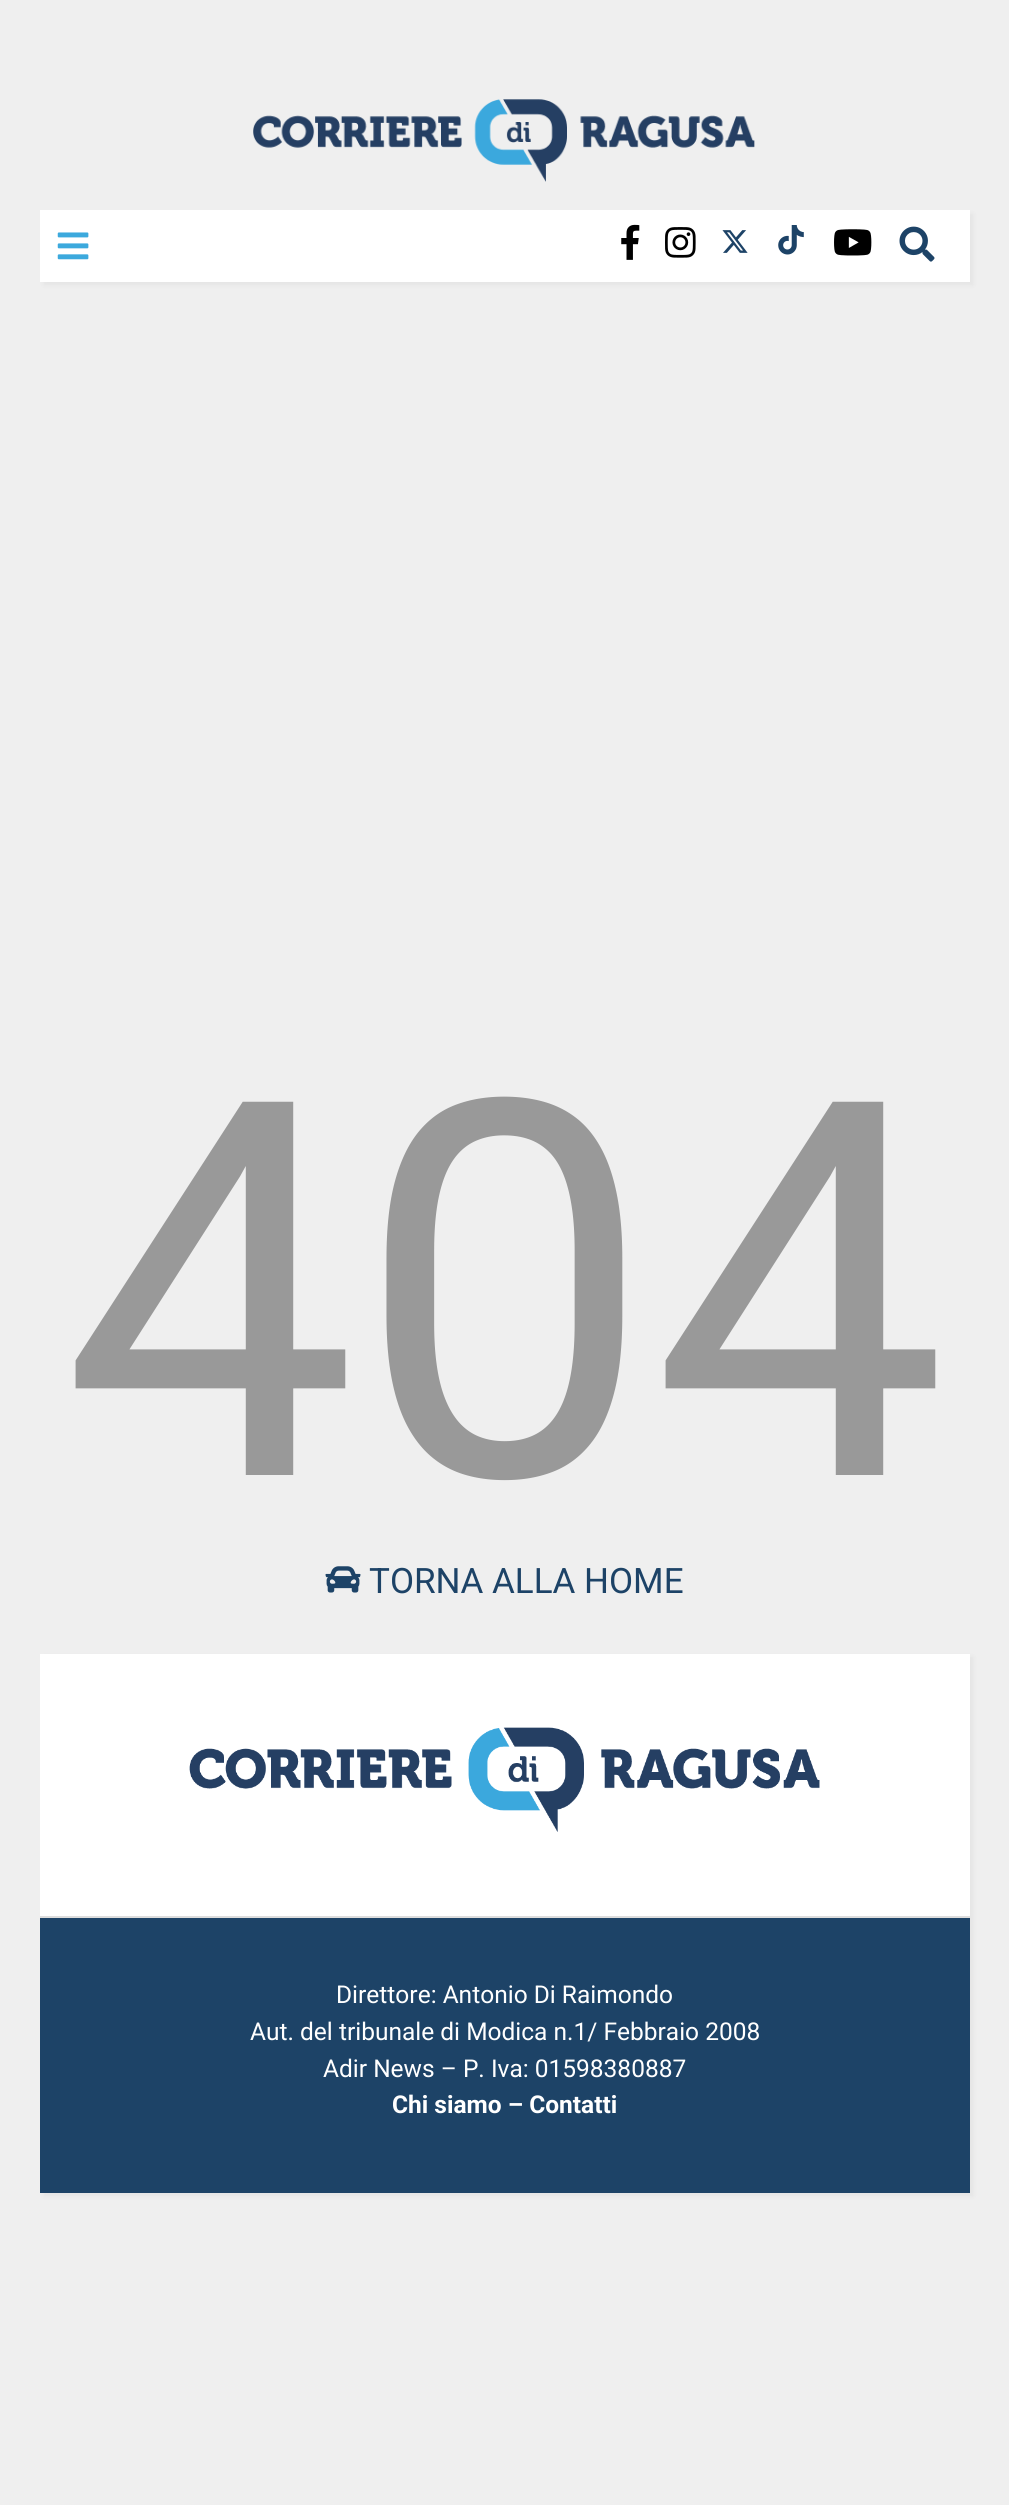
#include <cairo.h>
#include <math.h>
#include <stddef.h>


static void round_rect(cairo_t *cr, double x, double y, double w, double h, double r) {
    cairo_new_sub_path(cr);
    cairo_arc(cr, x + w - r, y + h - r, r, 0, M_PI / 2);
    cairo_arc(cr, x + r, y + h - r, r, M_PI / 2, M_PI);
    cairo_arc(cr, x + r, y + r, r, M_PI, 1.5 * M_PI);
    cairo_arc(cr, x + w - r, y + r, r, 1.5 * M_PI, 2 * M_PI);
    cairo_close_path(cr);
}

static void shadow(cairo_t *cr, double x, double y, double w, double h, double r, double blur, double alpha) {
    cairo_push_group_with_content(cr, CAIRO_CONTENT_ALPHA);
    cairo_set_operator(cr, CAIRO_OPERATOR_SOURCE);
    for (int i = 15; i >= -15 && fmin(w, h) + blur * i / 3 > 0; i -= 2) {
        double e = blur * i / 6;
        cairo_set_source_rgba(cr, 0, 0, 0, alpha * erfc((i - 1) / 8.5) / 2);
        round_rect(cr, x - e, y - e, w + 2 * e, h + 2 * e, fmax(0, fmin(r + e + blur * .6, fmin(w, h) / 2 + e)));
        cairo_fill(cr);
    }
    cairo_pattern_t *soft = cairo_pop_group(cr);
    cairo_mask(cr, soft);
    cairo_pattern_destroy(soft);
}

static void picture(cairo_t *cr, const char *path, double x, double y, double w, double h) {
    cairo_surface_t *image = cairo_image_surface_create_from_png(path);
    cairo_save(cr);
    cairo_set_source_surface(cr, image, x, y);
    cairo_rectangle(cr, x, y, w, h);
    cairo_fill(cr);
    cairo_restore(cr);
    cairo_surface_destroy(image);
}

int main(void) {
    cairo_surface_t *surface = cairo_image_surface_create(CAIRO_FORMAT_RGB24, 1009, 2505);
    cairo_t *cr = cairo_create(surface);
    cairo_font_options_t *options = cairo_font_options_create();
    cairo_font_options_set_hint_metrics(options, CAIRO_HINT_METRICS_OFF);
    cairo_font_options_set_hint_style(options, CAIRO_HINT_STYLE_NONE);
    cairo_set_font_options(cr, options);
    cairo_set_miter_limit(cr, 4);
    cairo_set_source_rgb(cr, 0.937, 0.937, 0.937);
    cairo_paint(cr);
    picture(cr, "img1.png", 253, 99, 502, 83);
    cairo_set_source_rgb(cr, 0, 0, 0);
    shadow(cr, 44, 214, 929, 71, 0, 2.5, 0.05);
    cairo_set_source_rgb(cr, 1, 1, 1);
    cairo_rectangle(cr, 40, 210, 930, 72);
    cairo_fill(cr);
    picture(cr, "img2.png", 57, 232, 32, 28);
    picture(cr, "img3.png", 621, 224, 19, 36);
    picture(cr, "img4.png", 665, 227, 31, 31);
    picture(cr, "img5.png", 722, 230, 26, 23);
    picture(cr, "img6.png", 778, 225, 26, 30);
    picture(cr, "img7.png", 834, 229, 38, 27);
    picture(cr, "img8.png", 899, 226, 36, 36);
    cairo_select_font_face(cr, "Roboto", CAIRO_FONT_SLANT_NORMAL, CAIRO_FONT_WEIGHT_NORMAL);
    cairo_set_font_size(cr, 525);
    cairo_set_source_rgb(cr, 0.6, 0.6, 0.6);
    cairo_move_to(cr, 62, 1475);
    cairo_show_text(cr, "404");
    picture(cr, "img9.png", 325, 1566, 36, 27);
    cairo_set_font_size(cr, 35);
    cairo_set_source_rgb(cr, 0.114, 0.263, 0.404);
    cairo_move_to(cr, 369, 1593);
    cairo_show_text(cr, "TORNA ALLA HOME");
    cairo_set_source_rgb(cr, 0, 0, 0);
    shadow(cr, 44, 1657, 929, 539, 0, 2.5, 0.05);
    cairo_set_source_rgb(cr, 1, 1, 1);
    cairo_rectangle(cr, 40, 1654, 930, 262);
    cairo_fill(cr);
    picture(cr, "img10.png", 189, 1727, 631, 105);
    cairo_set_source_rgb(cr, 0.114, 0.263, 0.404);
    cairo_rectangle(cr, 40, 1918, 930, 275);
    cairo_fill(cr);
    cairo_set_source_rgb(cr, 0.867, 0.867, 0.867);
    cairo_rectangle(cr, 40, 1916, 930, 2);
    cairo_fill(cr);
    cairo_set_font_size(cr, 24.5);
    cairo_set_source_rgb(cr, 1, 1, 1);
    cairo_move_to(cr, 336, 2003);
    cairo_show_text(cr, "Direttore: Antonio Di Raimondo");
    cairo_move_to(cr, 250, 2040);
    cairo_show_text(cr, "Aut. del tribunale di Modica n.1/ Febbraio 2008");
    cairo_move_to(cr, 323, 2077);
    cairo_show_text(cr, "Adir News – P. Iva: 01598380887");
    cairo_select_font_face(cr, "Roboto", CAIRO_FONT_SLANT_NORMAL, CAIRO_FONT_WEIGHT_BOLD);
    cairo_move_to(cr, 392, 2113);
    cairo_show_text(cr, "Chi siamo – Contatti");
    cairo_surface_write_to_png(surface, "page.png");
    cairo_font_options_destroy(options);
    cairo_destroy(cr);
    cairo_surface_destroy(surface);
    return 0;
}
